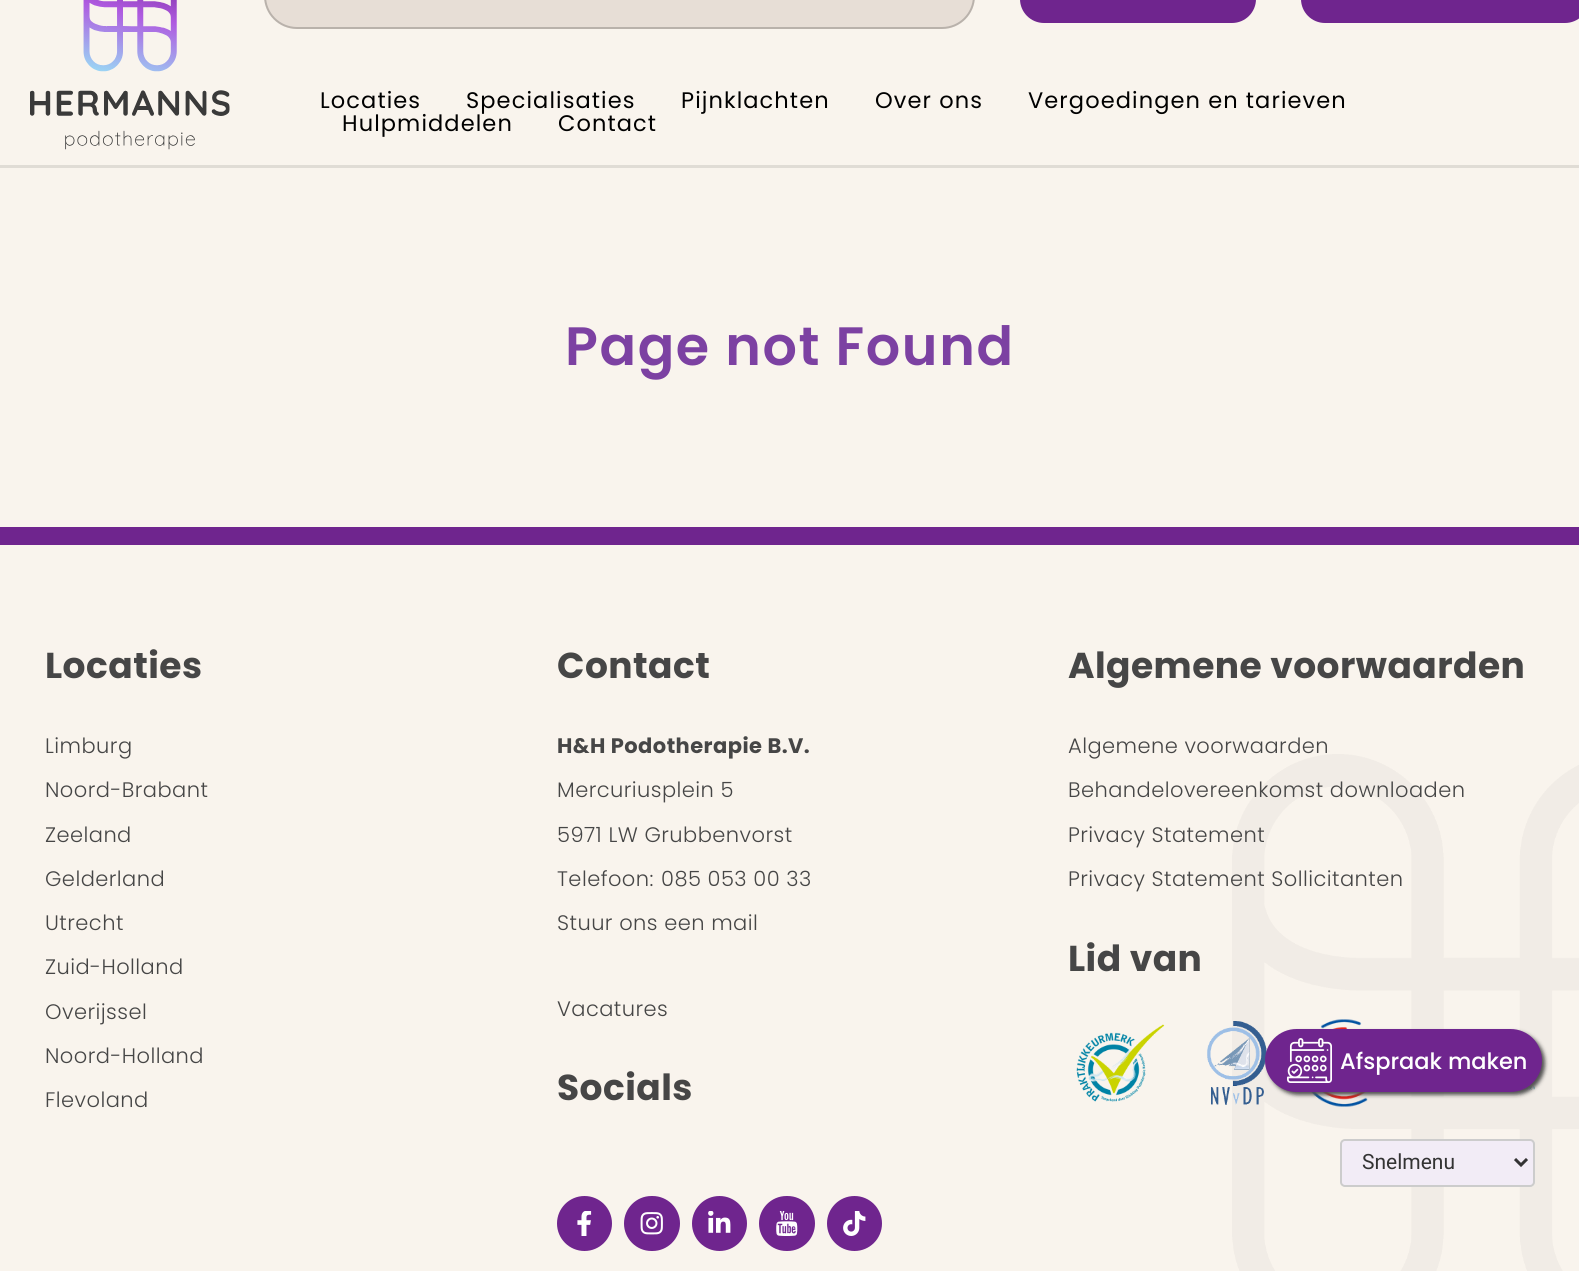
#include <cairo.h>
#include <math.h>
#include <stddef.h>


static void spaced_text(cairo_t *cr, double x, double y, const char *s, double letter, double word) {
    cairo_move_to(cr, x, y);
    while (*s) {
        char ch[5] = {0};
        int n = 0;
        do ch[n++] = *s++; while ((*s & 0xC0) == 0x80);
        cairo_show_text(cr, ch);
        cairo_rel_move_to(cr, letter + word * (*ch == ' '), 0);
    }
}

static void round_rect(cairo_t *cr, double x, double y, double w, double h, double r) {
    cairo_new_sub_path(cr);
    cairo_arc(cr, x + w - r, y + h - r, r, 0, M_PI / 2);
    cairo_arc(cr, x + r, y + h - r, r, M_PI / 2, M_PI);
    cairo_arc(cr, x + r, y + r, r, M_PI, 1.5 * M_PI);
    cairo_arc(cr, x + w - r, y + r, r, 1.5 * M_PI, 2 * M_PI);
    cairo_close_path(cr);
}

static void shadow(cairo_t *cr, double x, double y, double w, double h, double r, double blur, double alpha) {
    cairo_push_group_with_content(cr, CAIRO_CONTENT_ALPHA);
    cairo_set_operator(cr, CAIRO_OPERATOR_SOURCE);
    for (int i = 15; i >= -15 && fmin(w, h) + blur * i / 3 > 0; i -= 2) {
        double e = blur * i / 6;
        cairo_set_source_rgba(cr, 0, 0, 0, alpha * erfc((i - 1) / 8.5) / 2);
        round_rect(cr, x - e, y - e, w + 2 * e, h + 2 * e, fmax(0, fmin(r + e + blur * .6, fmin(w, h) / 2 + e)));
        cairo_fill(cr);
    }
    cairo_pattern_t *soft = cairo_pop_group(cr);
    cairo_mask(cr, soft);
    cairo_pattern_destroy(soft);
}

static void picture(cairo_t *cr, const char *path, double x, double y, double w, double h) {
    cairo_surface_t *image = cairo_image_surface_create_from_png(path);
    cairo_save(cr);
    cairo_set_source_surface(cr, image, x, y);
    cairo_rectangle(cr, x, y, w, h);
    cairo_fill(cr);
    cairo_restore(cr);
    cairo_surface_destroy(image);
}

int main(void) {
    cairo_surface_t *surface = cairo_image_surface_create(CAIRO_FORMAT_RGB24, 1579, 1271);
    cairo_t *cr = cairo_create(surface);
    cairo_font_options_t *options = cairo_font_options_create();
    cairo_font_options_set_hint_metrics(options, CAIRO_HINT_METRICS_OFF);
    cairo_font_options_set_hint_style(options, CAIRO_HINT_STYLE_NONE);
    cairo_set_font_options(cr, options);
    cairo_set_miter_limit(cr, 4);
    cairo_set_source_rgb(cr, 0.976, 0.957, 0.929);
    cairo_paint(cr);
    cairo_set_source_rgb(cr, 0.878, 0.863, 0.835);
    cairo_rectangle(cr, 0, 165, 1579, 3);
    cairo_fill(cr);
    picture(cr, "img1.png", 30, 0, 200, 150);
    cairo_set_source_rgb(cr, 0.906, 0.871, 0.839);
    round_rect(cr, 264, -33, 711, 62, 33);
    cairo_fill(cr);
    round_rect(cr, 265, -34, 709, 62, 32);
    cairo_set_source_rgba(cr, 0, 0, 0, 0.2);
    cairo_stroke(cr);
    cairo_set_source_rgb(cr, 0.435, 0.145, 0.557);
    round_rect(cr, 1020, -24, 236, 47, 24);
    cairo_fill(cr);
    round_rect(cr, 1301, -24, 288, 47, 24);
    cairo_fill(cr);
    cairo_select_font_face(cr, "Poppins", CAIRO_FONT_SLANT_NORMAL, CAIRO_FONT_WEIGHT_NORMAL);
    cairo_set_font_size(cr, 22.5);
    cairo_set_source_rgb(cr, 0, 0, 0);
    spaced_text(cr, 320, 108, "Locaties", 1.1, 0);
    spaced_text(cr, 466, 108, "Specialisaties", 1.1, 0);
    spaced_text(cr, 681, 108, "Pijnklachten", 1.1, 0);
    spaced_text(cr, 875, 108, "Over ons", 1.1, 0);
    spaced_text(cr, 1028, 108, "Vergoedingen en tarieven", 1.1, 0);
    spaced_text(cr, 342, 131, "Hulpmiddelen", 1.1, 0);
    spaced_text(cr, 558, 131, "Contact", 1.1, 0);
    cairo_select_font_face(cr, "Poppins SemiBold", CAIRO_FONT_SLANT_NORMAL, CAIRO_FONT_WEIGHT_NORMAL);
    cairo_set_font_size(cr, 54);
    cairo_set_source_rgb(cr, 0.486, 0.255, 0.635);
    spaced_text(cr, 565, 365, "Page not Found", 1.6, 0);
    picture(cr, "img2.png", 1232, 754, 347, 517);
    cairo_set_source_rgb(cr, 0.435, 0.145, 0.557);
    cairo_rectangle(cr, 0, 527, 1579, 18);
    cairo_fill(cr);
    cairo_select_font_face(cr, "Poppins", CAIRO_FONT_SLANT_NORMAL, CAIRO_FONT_WEIGHT_BOLD);
    cairo_set_font_size(cr, 36);
    cairo_set_source_rgb(cr, 0.275, 0.275, 0.275);
    spaced_text(cr, 45, 678, "Locaties", 0.45, 0);
    cairo_select_font_face(cr, "Poppins Light", CAIRO_FONT_SLANT_NORMAL, CAIRO_FONT_WEIGHT_NORMAL);
    cairo_set_font_size(cr, 21);
    spaced_text(cr, 45, 753, "Limburg", 0.45, 0);
    spaced_text(cr, 45, 797, "Noord-Brabant", 0.45, 0);
    spaced_text(cr, 45, 842, "Zeeland", 0.45, 0);
    spaced_text(cr, 45, 886, "Gelderland", 0.45, 0);
    spaced_text(cr, 45, 930, "Utrecht", 0.45, 0);
    spaced_text(cr, 45, 974, "Zuid-Holland", 0.45, 0);
    spaced_text(cr, 45, 1019, "Overijssel", 0.45, 0);
    spaced_text(cr, 45, 1063, "Noord-Holland", 0.45, 0);
    spaced_text(cr, 45, 1107, "Flevoland", 0.45, 0);
    cairo_select_font_face(cr, "Poppins", CAIRO_FONT_SLANT_NORMAL, CAIRO_FONT_WEIGHT_BOLD);
    cairo_set_font_size(cr, 36);
    spaced_text(cr, 557, 678, "Contact", 0.45, 0);
    cairo_set_font_size(cr, 21);
    spaced_text(cr, 557, 753, "H&H Podotherapie B.V.", 0.45, 0);
    cairo_select_font_face(cr, "Poppins Light", CAIRO_FONT_SLANT_NORMAL, CAIRO_FONT_WEIGHT_NORMAL);
    spaced_text(cr, 557, 797, "Mercuriusplein 5", 0.45, 0);
    spaced_text(cr, 557, 842, "5971 LW Grubbenvorst", 0.45, 0);
    spaced_text(cr, 557, 886, "Telefoon:", 0.45, 0);
    spaced_text(cr, 661, 886, "085 053 00 33", 0.45, 0);
    spaced_text(cr, 557, 930, "Stuur ons een mail", 0.45, 0);
    spaced_text(cr, 557, 1016, "Vacatures", 0.45, 0);
    cairo_select_font_face(cr, "Poppins", CAIRO_FONT_SLANT_NORMAL, CAIRO_FONT_WEIGHT_BOLD);
    cairo_set_font_size(cr, 36);
    spaced_text(cr, 557, 1100, "Socials", 0.45, 0);
    cairo_set_source_rgb(cr, 0.435, 0.145, 0.557);
    cairo_new_path(cr);
    cairo_arc(cr, 584.5, 1223.5, 27.5, 0, 2 * M_PI);
    cairo_fill(cr);
    picture(cr, "img3.png", 577, 1211, 15, 25);
    round_rect(cr, 624, 1196, 56, 55, 27.5);
    cairo_fill(cr);
    picture(cr, "img4.png", 640, 1212, 23, 23);
    cairo_arc(cr, 719.5, 1223.5, 27.5, 0, 2 * M_PI);
    cairo_fill(cr);
    picture(cr, "img5.png", 708, 1211, 23, 22);
    round_rect(cr, 759, 1196, 56, 55, 27.5);
    cairo_fill(cr);
    picture(cr, "img6.png", 776, 1211, 22, 25);
    cairo_arc(cr, 854.5, 1223.5, 27.5, 0, 2 * M_PI);
    cairo_fill(cr);
    picture(cr, "img7.png", 843, 1211, 23, 25);
    cairo_set_source_rgb(cr, 0.275, 0.275, 0.275);
    spaced_text(cr, 1068, 678, "Algemene voorwaarden", 0.45, 0);
    cairo_select_font_face(cr, "Poppins Light", CAIRO_FONT_SLANT_NORMAL, CAIRO_FONT_WEIGHT_NORMAL);
    cairo_set_font_size(cr, 21);
    spaced_text(cr, 1068, 753, "Algemene voorwaarden", 0.45, 0);
    spaced_text(cr, 1068, 797, "Behandelovereenkomst downloaden", 0.45, 0);
    spaced_text(cr, 1068, 842, "Privacy Statement", 0.45, 0);
    spaced_text(cr, 1068, 886, "Privacy Statement Sollicitanten", 0.45, 0);
    cairo_select_font_face(cr, "Poppins", CAIRO_FONT_SLANT_NORMAL, CAIRO_FONT_WEIGHT_BOLD);
    cairo_set_font_size(cr, 36);
    spaced_text(cr, 1068, 971, "Lid van", 0.45, 0);
    picture(cr, "img8.png", 1076, 1024, 89, 78);
    picture(cr, "img9.png", 1207, 1021, 60, 84);
    picture(cr, "img10.png", 1311, 1019, 57, 88);
    picture(cr, "img11.png", 1521, 1086, 14, 4);
    cairo_set_source_rgb(cr, 0.318, 0.318, 0.318);
    shadow(cr, 1268, 1032, 277, 63, 31.5, 2, 1);
    cairo_set_source_rgb(cr, 0.435, 0.145, 0.557);
    round_rect(cr, 1265, 1029, 277, 63, 31.5);
    cairo_fill(cr);
    picture(cr, "img12.png", 1287, 1038, 45, 45);
    cairo_select_font_face(cr, "Poppins Medium", CAIRO_FONT_SLANT_NORMAL, CAIRO_FONT_WEIGHT_NORMAL);
    cairo_set_font_size(cr, 22.5);
    cairo_set_source_rgb(cr, 1, 1, 1);
    cairo_move_to(cr, 1340, 1069);
    cairo_show_text(cr, "Afspraak maken");
    cairo_set_source_rgb(cr, 0.949, 0.922, 0.961);
    round_rect(cr, 1341, 1140, 193, 46, 4);
    cairo_fill_preserve(cr);
    cairo_set_source_rgb(cr, 0.8, 0.8, 0.8);
    cairo_stroke(cr);
    cairo_new_path(cr);
    cairo_move_to(cr, 1515, 1159);
    cairo_line_to(cr, 1521, 1165);
    cairo_line_to(cr, 1527, 1159);
    cairo_set_source_rgb(cr, 0.2, 0.2, 0.2);
    cairo_set_line_width(cr, 3);
    cairo_stroke(cr);
    cairo_select_font_face(cr, "Roboto", CAIRO_FONT_SLANT_NORMAL, CAIRO_FONT_WEIGHT_NORMAL);
    cairo_set_font_size(cr, 21);
    cairo_move_to(cr, 1362, 1169);
    cairo_show_text(cr, "Snelmenu");
    cairo_surface_write_to_png(surface, "page.png");
    cairo_font_options_destroy(options);
    cairo_destroy(cr);
    cairo_surface_destroy(surface);
    return 0;
}
